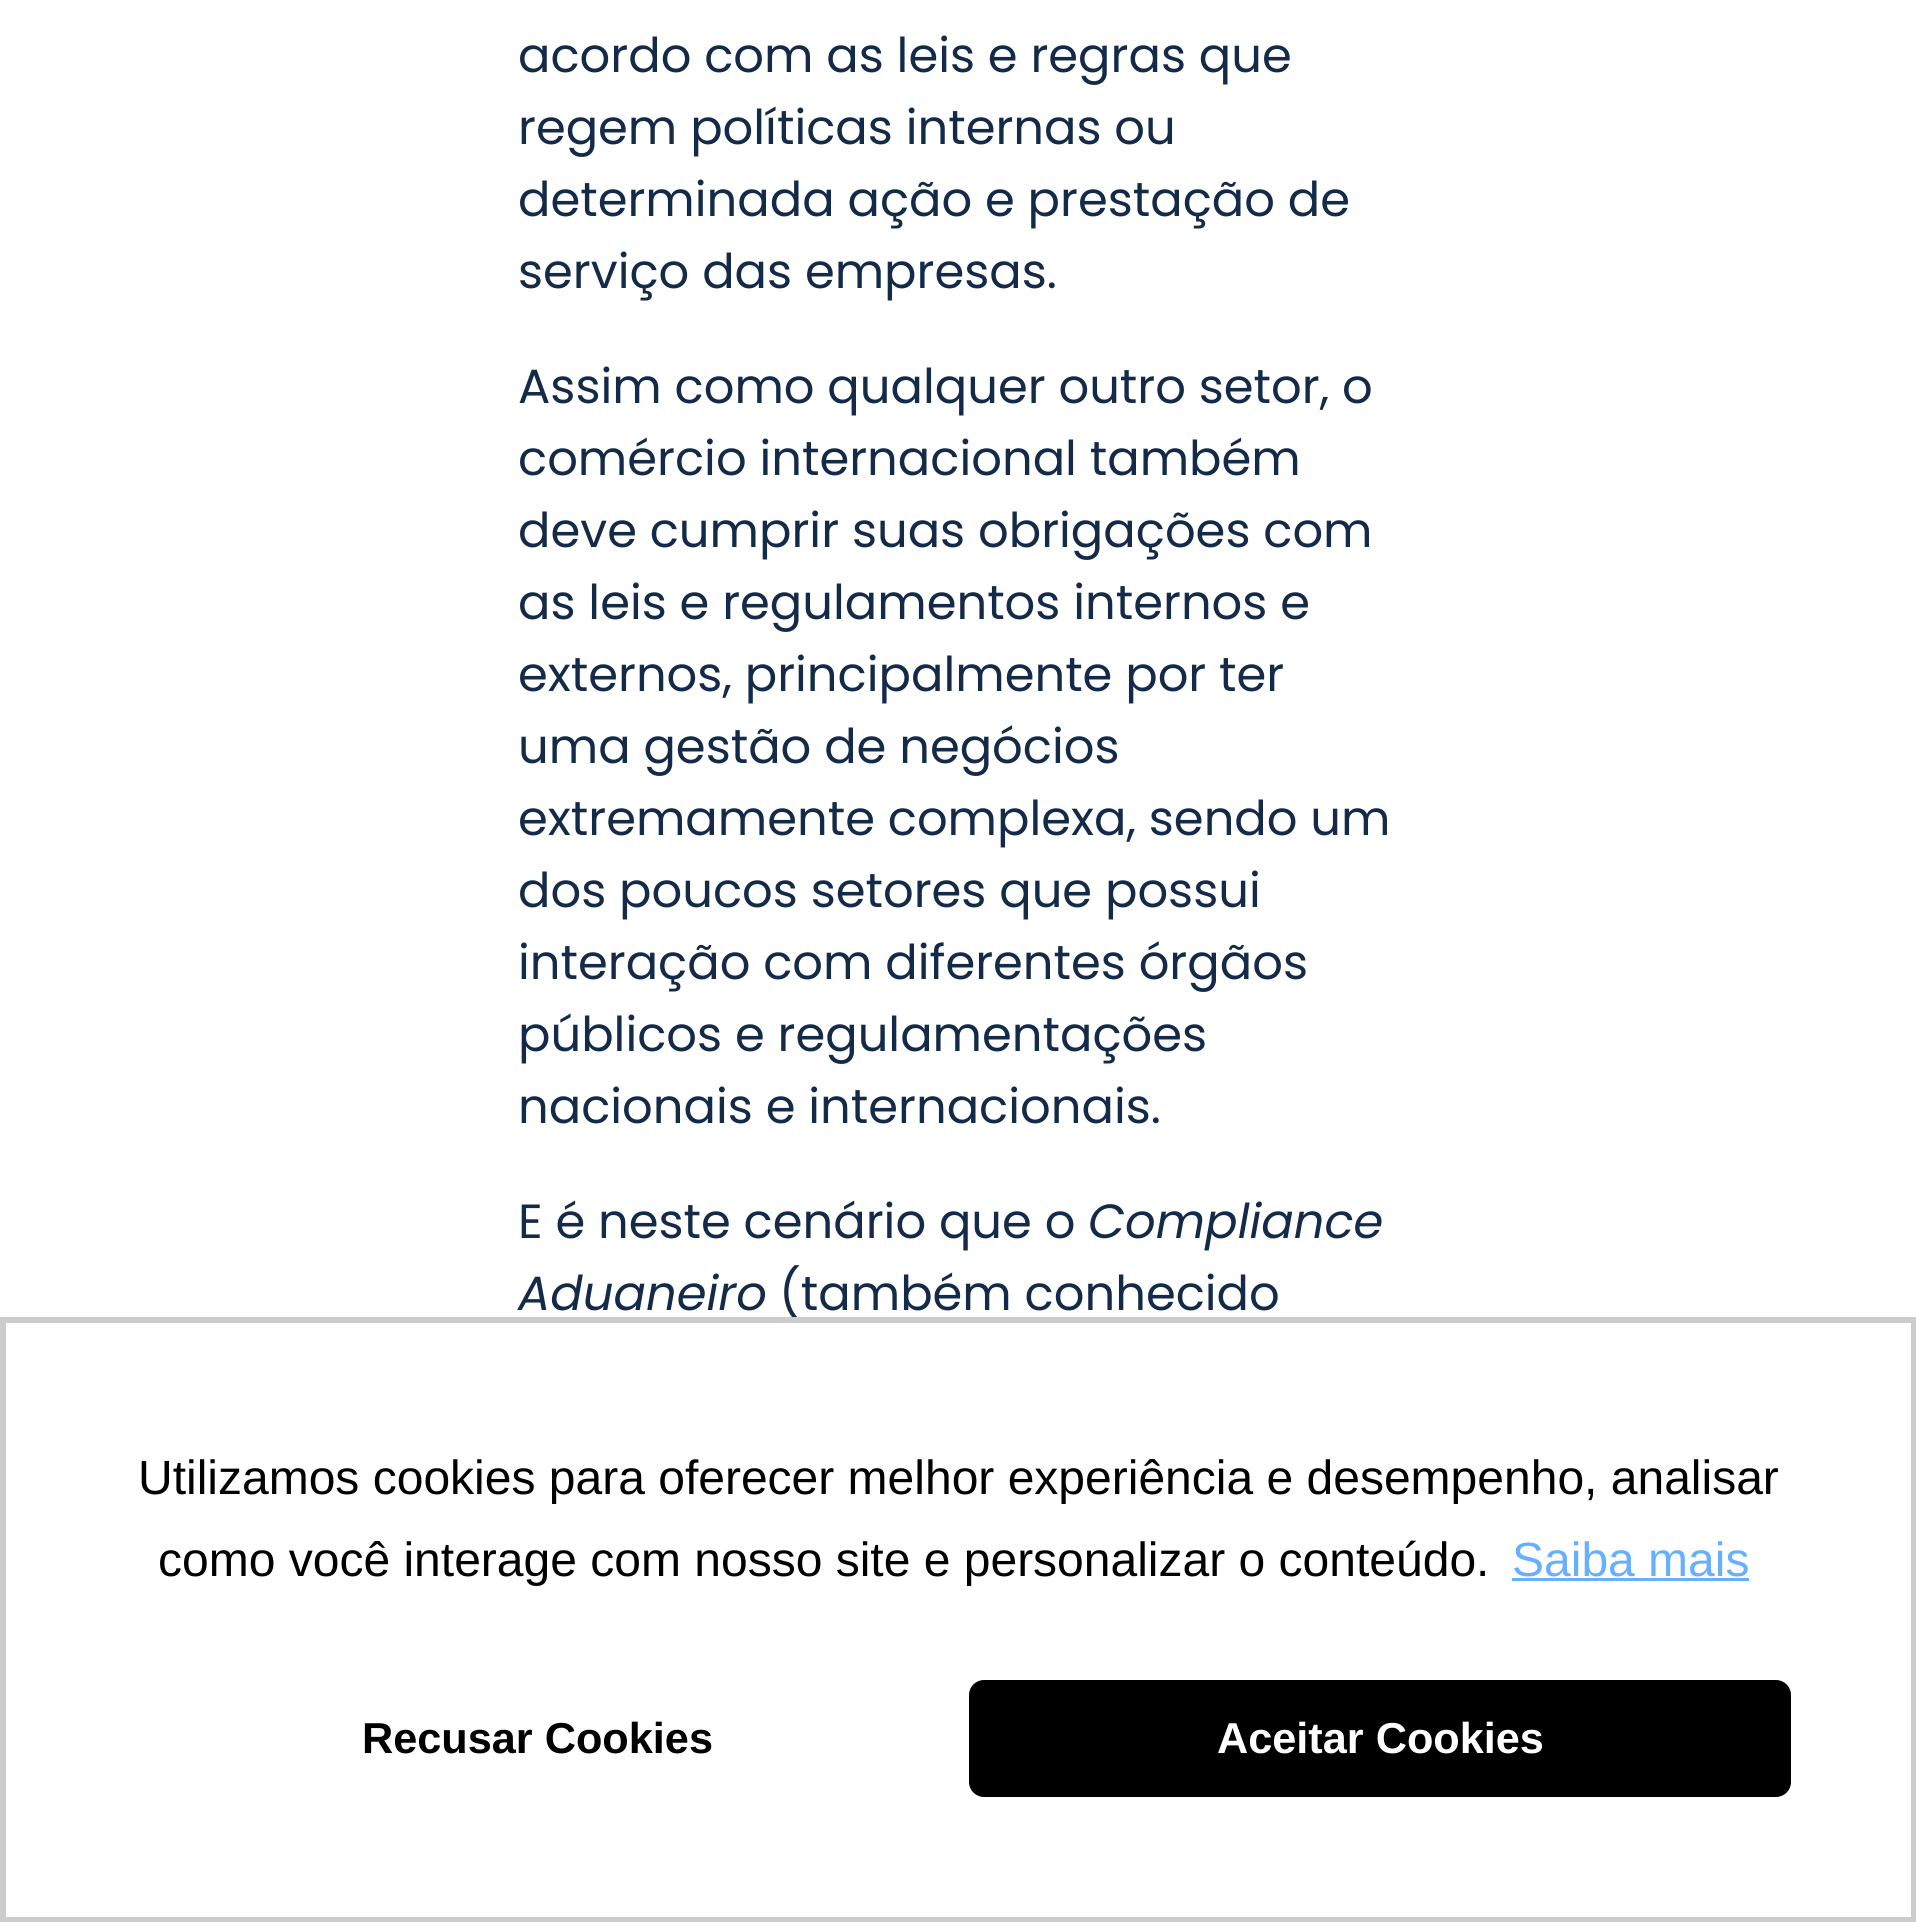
#include <cairo.h>
#include <math.h>
#include <stddef.h>


static void round_rect(cairo_t *cr, double x, double y, double w, double h, double r) {
    cairo_new_sub_path(cr);
    cairo_arc(cr, x + w - r, y + h - r, r, 0, M_PI / 2);
    cairo_arc(cr, x + r, y + h - r, r, M_PI / 2, M_PI);
    cairo_arc(cr, x + r, y + r, r, M_PI, 1.5 * M_PI);
    cairo_arc(cr, x + w - r, y + r, r, 1.5 * M_PI, 2 * M_PI);
    cairo_close_path(cr);
}

int main(void) {
    cairo_surface_t *surface = cairo_image_surface_create(CAIRO_FORMAT_RGB24, 1916, 1922);
    cairo_t *cr = cairo_create(surface);
    cairo_font_options_t *options = cairo_font_options_create();
    cairo_font_options_set_hint_metrics(options, CAIRO_HINT_METRICS_OFF);
    cairo_font_options_set_hint_style(options, CAIRO_HINT_STYLE_NONE);
    cairo_set_font_options(cr, options);
    cairo_set_miter_limit(cr, 4);
    cairo_set_source_rgb(cr, 1, 1, 1);
    cairo_paint(cr);
    cairo_select_font_face(cr, "Poppins", CAIRO_FONT_SLANT_NORMAL, CAIRO_FONT_WEIGHT_NORMAL);
    cairo_set_font_size(cr, 48);
    cairo_set_source_rgb(cr, 0.075, 0.169, 0.282);
    cairo_move_to(cr, 518, 72);
    cairo_show_text(cr, "acordo com as leis e regras que");
    cairo_move_to(cr, 518, 144);
    cairo_show_text(cr, "regem políticas internas ou");
    cairo_move_to(cr, 518, 216);
    cairo_show_text(cr, "determinada ação e prestação de");
    cairo_move_to(cr, 518, 288);
    cairo_show_text(cr, "serviço das empresas.");
    cairo_move_to(cr, 518, 403);
    cairo_show_text(cr, "Assim como qualquer outro setor, o");
    cairo_move_to(cr, 518, 475);
    cairo_show_text(cr, "comércio internacional também");
    cairo_move_to(cr, 518, 547);
    cairo_show_text(cr, "deve cumprir suas obrigações com");
    cairo_move_to(cr, 518, 619);
    cairo_show_text(cr, "as leis e regulamentos internos e");
    cairo_move_to(cr, 518, 691);
    cairo_show_text(cr, "externos, principalmente por ter");
    cairo_move_to(cr, 518, 763);
    cairo_show_text(cr, "uma gestão de negócios");
    cairo_move_to(cr, 518, 835);
    cairo_show_text(cr, "extremamente complexa, sendo um");
    cairo_move_to(cr, 518, 907);
    cairo_show_text(cr, "dos poucos setores que possui");
    cairo_move_to(cr, 518, 979);
    cairo_show_text(cr, "interação com diferentes órgãos");
    cairo_move_to(cr, 518, 1051);
    cairo_show_text(cr, "públicos e regulamentações");
    cairo_move_to(cr, 518, 1123);
    cairo_show_text(cr, "nacionais e internacionais.");
    cairo_move_to(cr, 518, 1238);
    cairo_show_text(cr, "E é neste cenário que o");
    cairo_select_font_face(cr, "Poppins", CAIRO_FONT_SLANT_ITALIC, CAIRO_FONT_WEIGHT_NORMAL);
    cairo_move_to(cr, 1088, 1238);
    cairo_show_text(cr, "Compliance");
    cairo_move_to(cr, 518, 1310);
    cairo_show_text(cr, "Aduaneiro");
    cairo_select_font_face(cr, "Poppins", CAIRO_FONT_SLANT_NORMAL, CAIRO_FONT_WEIGHT_NORMAL);
    cairo_move_to(cr, 779, 1310);
    cairo_show_text(cr, "(também conhecido");
    cairo_rectangle(cr, 3, 1320, 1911, 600);
    cairo_set_source_rgb(cr, 0.8, 0.8, 0.8);
    cairo_set_line_width(cr, 6);
    cairo_stroke(cr);
    cairo_select_font_face(cr, "Liberation Sans", CAIRO_FONT_SLANT_NORMAL, CAIRO_FONT_WEIGHT_NORMAL);
    cairo_set_source_rgb(cr, 0, 0, 0);
    cairo_move_to(cr, 138, 1494);
    cairo_show_text(cr, "Utilizamos cookies para oferecer melhor experiência e desempenho, analisar");
    cairo_move_to(cr, 158, 1576);
    cairo_show_text(cr, "como você interage com nosso site e personalizar o conteúdo.");
    cairo_set_source_rgb(cr, 0.4, 0.69, 1);
    cairo_move_to(cr, 1512, 1576);
    cairo_show_text(cr, "Saiba mais");
    cairo_rectangle(cr, 1512, 1578, 237, 3);
    cairo_fill(cr);
    cairo_select_font_face(cr, "Liberation Sans", CAIRO_FONT_SLANT_NORMAL, CAIRO_FONT_WEIGHT_BOLD);
    cairo_set_font_size(cr, 43.25);
    cairo_set_source_rgb(cr, 0, 0, 0);
    cairo_move_to(cr, 362, 1753);
    cairo_show_text(cr, "Recusar Cookies");
    round_rect(cr, 969, 1680, 822, 117, 15);
    cairo_fill(cr);
    cairo_set_source_rgb(cr, 1, 1, 1);
    cairo_move_to(cr, 1217, 1753);
    cairo_show_text(cr, "Aceitar Cookies");
    cairo_surface_write_to_png(surface, "page.png");
    cairo_font_options_destroy(options);
    cairo_destroy(cr);
    cairo_surface_destroy(surface);
    return 0;
}
